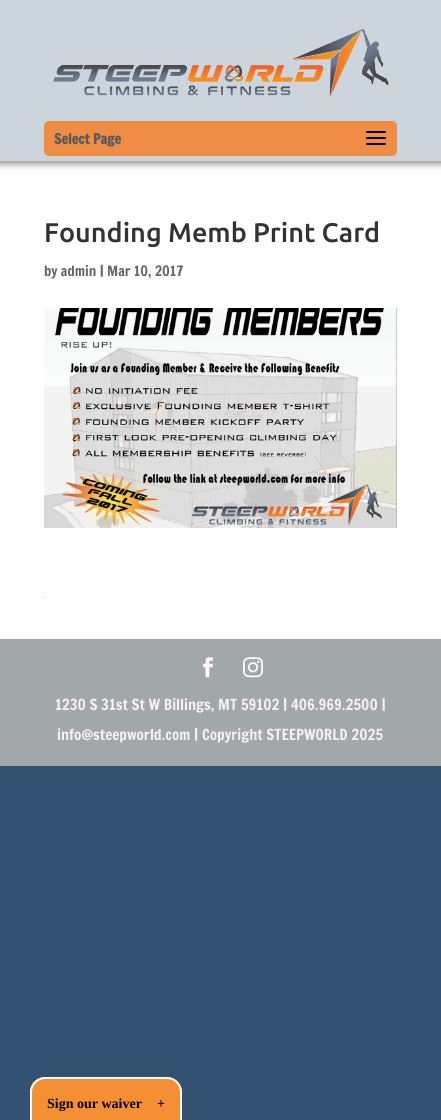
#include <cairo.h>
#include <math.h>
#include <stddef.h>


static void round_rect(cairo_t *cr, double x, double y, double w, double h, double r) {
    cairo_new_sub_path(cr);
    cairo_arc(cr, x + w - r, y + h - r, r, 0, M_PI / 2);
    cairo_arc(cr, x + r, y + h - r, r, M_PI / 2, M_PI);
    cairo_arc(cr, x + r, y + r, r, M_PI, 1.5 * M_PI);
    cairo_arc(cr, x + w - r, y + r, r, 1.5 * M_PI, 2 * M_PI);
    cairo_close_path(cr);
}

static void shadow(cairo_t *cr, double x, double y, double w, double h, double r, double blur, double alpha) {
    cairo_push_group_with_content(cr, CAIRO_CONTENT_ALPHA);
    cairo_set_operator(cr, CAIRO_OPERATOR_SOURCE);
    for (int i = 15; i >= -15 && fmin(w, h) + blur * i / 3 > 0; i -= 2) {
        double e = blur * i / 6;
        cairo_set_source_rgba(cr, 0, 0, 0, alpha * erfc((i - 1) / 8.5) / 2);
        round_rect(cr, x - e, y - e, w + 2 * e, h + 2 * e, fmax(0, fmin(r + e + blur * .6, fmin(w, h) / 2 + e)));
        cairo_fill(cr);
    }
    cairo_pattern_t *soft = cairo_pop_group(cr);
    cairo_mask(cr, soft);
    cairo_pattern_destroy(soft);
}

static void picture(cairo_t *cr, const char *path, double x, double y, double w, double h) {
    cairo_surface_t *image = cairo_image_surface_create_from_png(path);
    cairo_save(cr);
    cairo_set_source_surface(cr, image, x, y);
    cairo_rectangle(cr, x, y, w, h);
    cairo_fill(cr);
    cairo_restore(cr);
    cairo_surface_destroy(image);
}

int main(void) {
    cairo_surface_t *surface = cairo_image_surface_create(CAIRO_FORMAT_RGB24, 441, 1120);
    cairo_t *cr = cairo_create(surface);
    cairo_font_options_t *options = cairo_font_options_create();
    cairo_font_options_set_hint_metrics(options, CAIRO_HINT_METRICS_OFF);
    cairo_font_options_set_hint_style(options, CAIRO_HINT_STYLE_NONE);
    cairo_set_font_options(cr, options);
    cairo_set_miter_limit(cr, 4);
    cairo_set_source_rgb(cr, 0.2, 0.322, 0.447);
    cairo_paint(cr);
    cairo_set_source_rgb(cr, 1, 1, 1);
    cairo_rectangle(cr, 0, 161, 441, 478);
    cairo_fill(cr);
    cairo_set_source_rgb(cr, 0, 0, 0);
    shadow(cr, -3, -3, 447, 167, 0, 3.5, 0.43);
    cairo_set_source_rgb(cr, 0.8, 0.831, 0.863);
    cairo_rectangle(cr, 0, 0, 441, 161);
    cairo_fill(cr);
    picture(cr, "img1.png", 53, 29, 336, 68);
    cairo_set_source_rgb(cr, 0.937, 0.553, 0.275);
    round_rect(cr, 44, 121, 353, 35, 5);
    cairo_fill(cr);
    cairo_select_font_face(cr, "Francois One", CAIRO_FONT_SLANT_NORMAL, CAIRO_FONT_WEIGHT_BOLD);
    cairo_set_font_size(cr, 14);
    cairo_set_source_rgb(cr, 0.357, 0.357, 0.357);
    cairo_move_to(cr, 54, 144);
    cairo_show_text(cr, "Select Page");
    picture(cr, "img2.png", 366, 131, 20, 14);
    cairo_select_font_face(cr, "Ubuntu Medium", CAIRO_FONT_SLANT_NORMAL, CAIRO_FONT_WEIGHT_NORMAL);
    cairo_set_font_size(cr, 27);
    cairo_set_source_rgb(cr, 0.2, 0.2, 0.2);
    cairo_move_to(cr, 44, 242);
    cairo_show_text(cr, "Founding Memb Print Card");
    cairo_select_font_face(cr, "Francois One", CAIRO_FONT_SLANT_NORMAL, CAIRO_FONT_WEIGHT_NORMAL);
    cairo_set_font_size(cr, 14);
    cairo_set_source_rgb(cr, 0.4, 0.4, 0.4);
    cairo_move_to(cr, 44, 276);
    cairo_show_text(cr, "by admin | Mar 10, 2017");
    picture(cr, "img3.png", 44, 308, 353, 220);
    cairo_set_source_rgb(cr, 0.792, 0.784, 0.78);
    cairo_rectangle(cr, 44, 597, 1, 1);
    cairo_fill(cr);
    cairo_set_source_rgb(cr, 0.635, 0.655, 0.663);
    cairo_rectangle(cr, 0, 639, 441, 127);
    cairo_fill(cr);
    picture(cr, "img4.png", 203, 657, 10, 21);
    picture(cr, "img5.png", 243, 657, 20, 21);
    cairo_set_font_size(cr, 15);
    cairo_set_source_rgb(cr, 0.949, 0.949, 0.949);
    cairo_move_to(cr, 55, 710);
    cairo_show_text(cr, "1230 S 31st St W Billings, MT 59102 | 406.969.2500 |");
    cairo_move_to(cr, 57, 740);
    cairo_show_text(cr, "info@steepworld.com | Copyright STEEPWORLD 2025");
    cairo_set_source_rgb(cr, 0.957, 0.561, 0.204);
    cairo_new_path(cr);
    cairo_move_to(cr, 45, 1077);
    cairo_line_to(cr, 167, 1077);
    cairo_curve_to(cr, 175.5, 1077, 182, 1083.5, 182, 1092);
    cairo_line_to(cr, 182, 1120);
    cairo_line_to(cr, 30, 1120);
    cairo_line_to(cr, 30, 1092);
    cairo_curve_to(cr, 30, 1083.5, 36.5, 1077, 45, 1077);
    cairo_close_path(cr);
    cairo_fill(cr);
    cairo_set_source_rgb(cr, 1, 1, 1);
    cairo_set_fill_rule(cr, CAIRO_FILL_RULE_EVEN_ODD);
    cairo_new_path(cr);
    cairo_move_to(cr, 45, 1077);
    cairo_line_to(cr, 167, 1077);
    cairo_curve_to(cr, 175, 1077, 182, 1084, 182, 1092);
    cairo_line_to(cr, 182, 1120);
    cairo_line_to(cr, 30, 1120);
    cairo_line_to(cr, 30, 1092);
    cairo_curve_to(cr, 30, 1084, 37, 1077, 45, 1077);
    cairo_close_path(cr);
    cairo_move_to(cr, 45, 1079);
    cairo_line_to(cr, 167, 1079);
    cairo_curve_to(cr, 174, 1079, 180, 1085, 180, 1092);
    cairo_line_to(cr, 180, 1120);
    cairo_line_to(cr, 32, 1120);
    cairo_line_to(cr, 32, 1092);
    cairo_curve_to(cr, 32, 1085, 38, 1079, 45, 1079);
    cairo_close_path(cr);
    cairo_fill(cr);
    cairo_select_font_face(cr, "Liberation Serif", CAIRO_FONT_SLANT_NORMAL, CAIRO_FONT_WEIGHT_BOLD);
    cairo_set_font_size(cr, 14);
    cairo_set_source_rgb(cr, 0, 0, 0);
    cairo_move_to(cr, 47, 1108);
    cairo_show_text(cr, "Sign our waiver");
    cairo_move_to(cr, 157, 1108);
    cairo_show_text(cr, "+");
    cairo_surface_write_to_png(surface, "page.png");
    cairo_font_options_destroy(options);
    cairo_destroy(cr);
    cairo_surface_destroy(surface);
    return 0;
}
